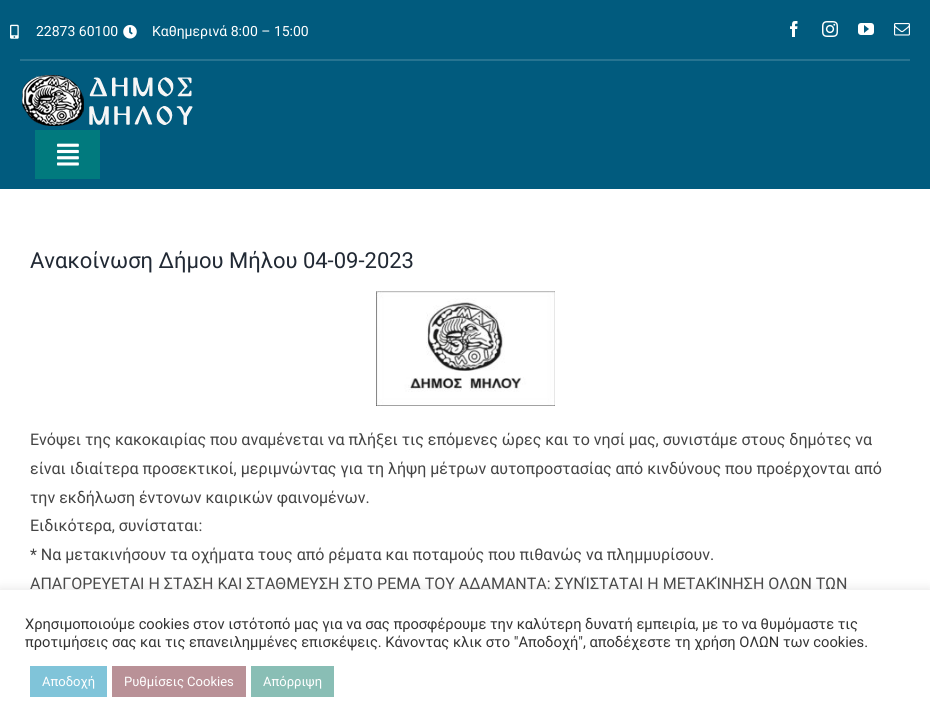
#include <cairo.h>
#include <math.h>
#include <stddef.h>


static void round_rect(cairo_t *cr, double x, double y, double w, double h, double r) {
    cairo_new_sub_path(cr);
    cairo_arc(cr, x + w - r, y + h - r, r, 0, M_PI / 2);
    cairo_arc(cr, x + r, y + h - r, r, M_PI / 2, M_PI);
    cairo_arc(cr, x + r, y + r, r, M_PI, 1.5 * M_PI);
    cairo_arc(cr, x + w - r, y + r, r, 1.5 * M_PI, 2 * M_PI);
    cairo_close_path(cr);
}

static void shadow(cairo_t *cr, double x, double y, double w, double h, double r, double blur, double alpha) {
    cairo_push_group_with_content(cr, CAIRO_CONTENT_ALPHA);
    cairo_set_operator(cr, CAIRO_OPERATOR_SOURCE);
    for (int i = 15; i >= -15 && fmin(w, h) + blur * i / 3 > 0; i -= 2) {
        double e = blur * i / 6;
        cairo_set_source_rgba(cr, 0, 0, 0, alpha * erfc((i - 1) / 8.5) / 2);
        round_rect(cr, x - e, y - e, w + 2 * e, h + 2 * e, fmax(0, fmin(r + e + blur * .6, fmin(w, h) / 2 + e)));
        cairo_fill(cr);
    }
    cairo_pattern_t *soft = cairo_pop_group(cr);
    cairo_mask(cr, soft);
    cairo_pattern_destroy(soft);
}

static void picture(cairo_t *cr, const char *path, double x, double y, double w, double h) {
    cairo_surface_t *image = cairo_image_surface_create_from_png(path);
    cairo_save(cr);
    cairo_set_source_surface(cr, image, x, y);
    cairo_rectangle(cr, x, y, w, h);
    cairo_fill(cr);
    cairo_restore(cr);
    cairo_surface_destroy(image);
}

int main(void) {
    cairo_surface_t *surface = cairo_image_surface_create(CAIRO_FORMAT_RGB24, 930, 727);
    cairo_t *cr = cairo_create(surface);
    cairo_font_options_t *options = cairo_font_options_create();
    cairo_font_options_set_hint_metrics(options, CAIRO_HINT_METRICS_OFF);
    cairo_font_options_set_hint_style(options, CAIRO_HINT_STYLE_NONE);
    cairo_set_font_options(cr, options);
    cairo_set_miter_limit(cr, 4);
    cairo_set_source_rgb(cr, 1, 1, 1);
    cairo_paint(cr);
    cairo_set_source_rgb(cr, 0.004, 0.357, 0.494);
    cairo_rectangle(cr, 0, 0, 930, 189);
    cairo_fill(cr);
    picture(cr, "img1.png", 22, 75, 171, 51);
    cairo_set_source_rgb(cr, 0.004, 0.478, 0.494);
    cairo_rectangle(cr, 35, 130, 65, 49);
    cairo_fill(cr);
    picture(cr, "img2.png", 57, 143, 22, 23);
    picture(cr, "img3.png", 10, 24, 9, 15);
    cairo_select_font_face(cr, "Roboto", CAIRO_FONT_SLANT_NORMAL, CAIRO_FONT_WEIGHT_NORMAL);
    cairo_set_font_size(cr, 14);
    cairo_set_source_rgb(cr, 1, 1, 1);
    cairo_move_to(cr, 36, 36);
    cairo_show_text(cr, "22873 60100");
    picture(cr, "img4.png", 123, 25, 14, 14);
    cairo_move_to(cr, 152, 36);
    cairo_show_text(cr, "Καθημερινά 8:00 – 15:00");
    picture(cr, "img5.png", 790, 21, 8, 16);
    picture(cr, "img6.png", 822, 21, 16, 16);
    picture(cr, "img7.png", 858, 23, 16, 12);
    picture(cr, "img8.png", 894, 23, 16, 13);
    cairo_set_source_rgb(cr, 0.153, 0.455, 0.569);
    cairo_rectangle(cr, 20, 59, 890, 2);
    cairo_fill(cr);
    cairo_set_font_size(cr, 22);
    cairo_set_source_rgb(cr, 0.129, 0.161, 0.204);
    cairo_move_to(cr, 30, 268);
    cairo_show_text(cr, "Ανακοίνωση Δήμου Μήλου 04-09-2023");
    picture(cr, "img9.png", 376, 291, 179, 115);
    cairo_set_font_size(cr, 16);
    cairo_set_source_rgb(cr, 0.267, 0.267, 0.267);
    cairo_move_to(cr, 30, 445);
    cairo_show_text(cr, "Ενόψει της κακοκαιρίας που αναμένεται να πλήξει τις επόμενες ώρες και το νησί μας, συνιστάμε στους δημότες να");
    cairo_move_to(cr, 30, 474);
    cairo_show_text(cr, "είναι ιδιαίτερα προσεκτικοί, μεριμνώντας για τη λήψη μέτρων αυτοπροστασίας από κινδύνους που προέρχονται από");
    cairo_move_to(cr, 30, 503);
    cairo_show_text(cr, "την εκδήλωση έντονων καιρικών φαινομένων.");
    cairo_move_to(cr, 30, 531);
    cairo_show_text(cr, "Ειδικότερα, συνίσταται:");
    cairo_move_to(cr, 30, 560);
    cairo_show_text(cr, "* Να μετακινήσουν τα οχήματα τους από ρέματα και ποταμούς που πιθανώς να πλημμυρίσουν.");
    cairo_move_to(cr, 30, 589);
    cairo_show_text(cr, "ΑΠΑΓΟΡΕΥΕΤΑΙ Η ΣΤΑΣΗ ΚΑΙ ΣΤΑΘΜΕΥΣΗ ΣΤΟ ΡΕΜΑ ΤΟΥ ΑΔΑΜΑΝΤΑ: ΣΥΝΊΣΤΑΤΑΙ Η ΜΕΤΑΚΊΝΗΣΗ ΟΛΩΝ ΤΩΝ");
    cairo_set_source_rgb(cr, 0.675, 0.671, 0.671);
    shadow(cr, 0, 589, 930, 137, 0, 5, 0.3);
    cairo_set_source_rgb(cr, 1, 1, 1);
    cairo_rectangle(cr, 0, 590, 930, 137);
    cairo_fill(cr);
    cairo_set_font_size(cr, 14.67);
    cairo_set_source_rgb(cr, 0.2, 0.2, 0.2);
    cairo_move_to(cr, 25, 629);
    cairo_show_text(cr, "Χρησιμοποιούμε cookies στον ιστότοπό μας για να σας προσφέρουμε την καλύτερη δυνατή εμπειρία, με το να θυμόμαστε τις");
    cairo_move_to(cr, 25, 647);
    cairo_show_text(cr, "προτιμήσεις σας και τις επανειλημμένες επισκέψεις. Κάνοντας κλικ στο \"Αποδοχή\", αποδέχεστε τη χρήση ΟΛΩΝ των cookies.");
    cairo_set_source_rgb(cr, 0.502, 0.769, 0.851);
    cairo_rectangle(cr, 30, 666, 77, 31);
    cairo_fill(cr);
    cairo_set_font_size(cr, 13);
    cairo_set_source_rgb(cr, 1, 1, 1);
    cairo_move_to(cr, 42, 686);
    cairo_show_text(cr, "Αποδοχή");
    cairo_set_source_rgb(cr, 0.725, 0.569, 0.592);
    cairo_rectangle(cr, 112, 666, 134, 31);
    cairo_fill(cr);
    cairo_set_source_rgb(cr, 1, 1, 1);
    cairo_move_to(cr, 124, 686);
    cairo_show_text(cr, "Ρυθμίσεις Cookies");
    cairo_set_source_rgb(cr, 0.537, 0.745, 0.71);
    cairo_rectangle(cr, 251, 666, 83, 31);
    cairo_fill(cr);
    cairo_set_source_rgb(cr, 1, 1, 1);
    cairo_move_to(cr, 263, 686);
    cairo_show_text(cr, "Απόρριψη");
    cairo_surface_write_to_png(surface, "page.png");
    cairo_font_options_destroy(options);
    cairo_destroy(cr);
    cairo_surface_destroy(surface);
    return 0;
}
